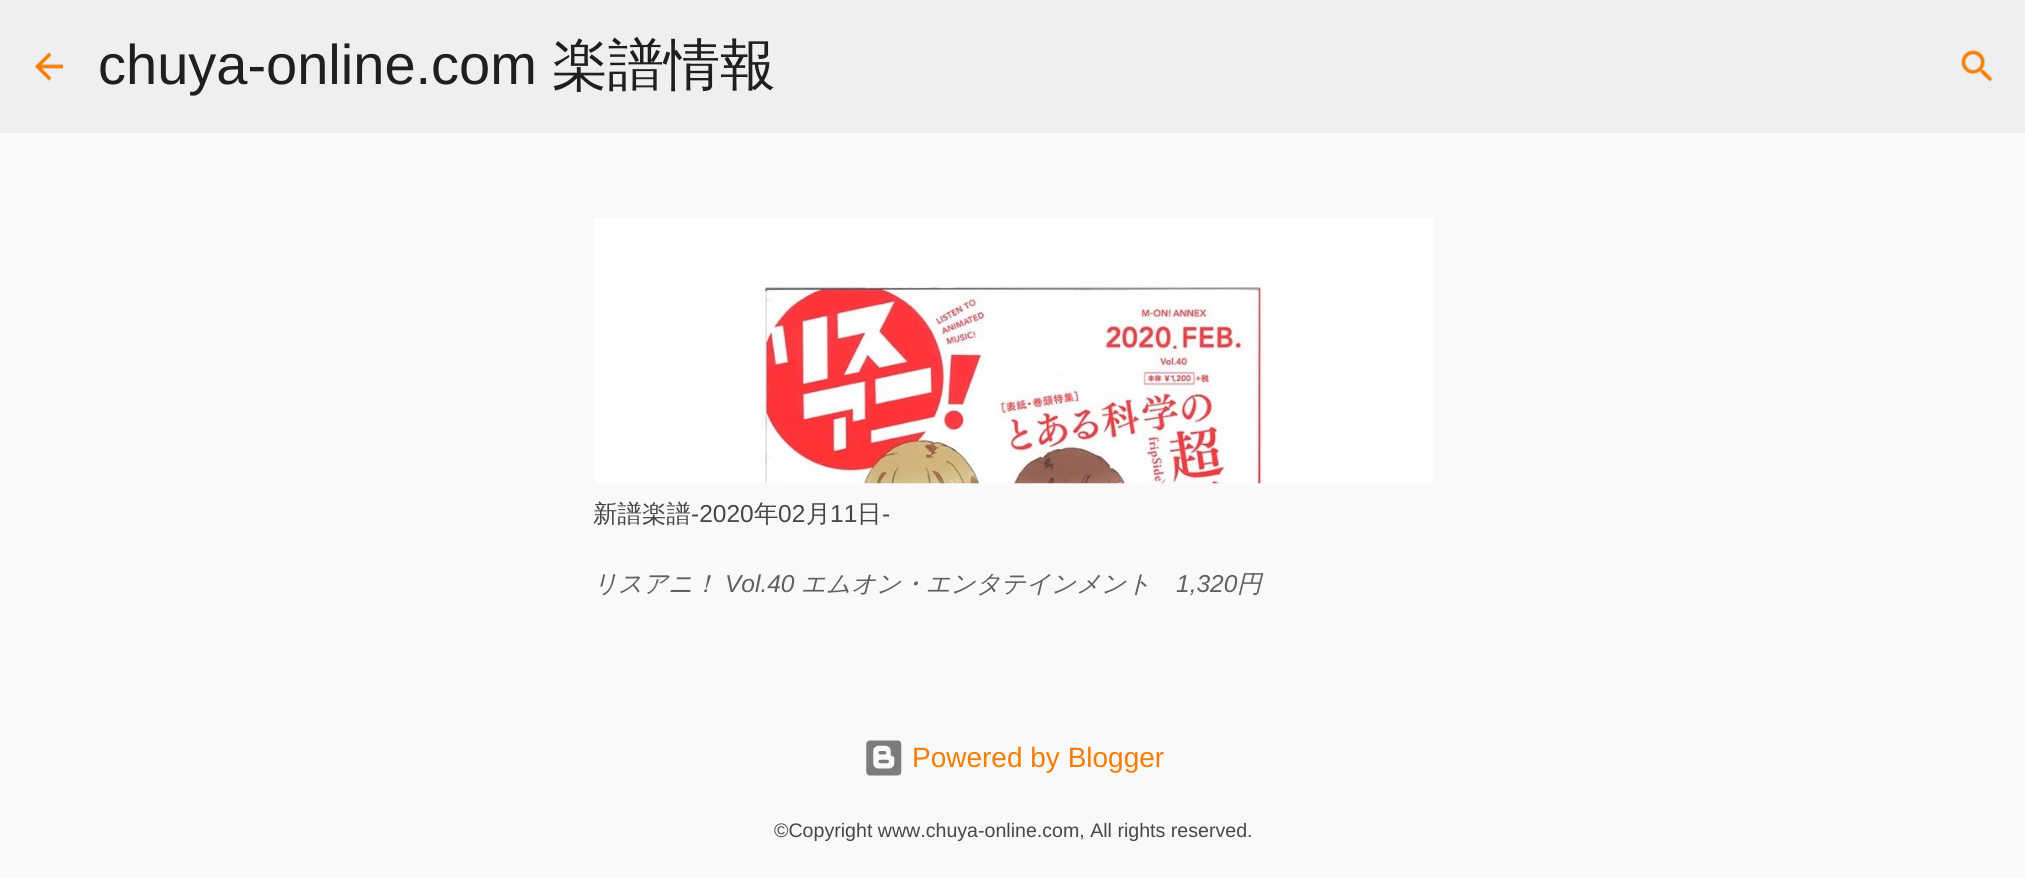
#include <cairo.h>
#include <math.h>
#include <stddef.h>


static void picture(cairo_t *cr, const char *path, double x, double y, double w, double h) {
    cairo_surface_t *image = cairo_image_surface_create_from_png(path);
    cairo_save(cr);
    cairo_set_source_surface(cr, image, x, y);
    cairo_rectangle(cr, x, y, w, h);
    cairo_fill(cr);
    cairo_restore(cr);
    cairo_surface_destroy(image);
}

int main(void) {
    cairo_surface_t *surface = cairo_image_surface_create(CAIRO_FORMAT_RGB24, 2025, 878);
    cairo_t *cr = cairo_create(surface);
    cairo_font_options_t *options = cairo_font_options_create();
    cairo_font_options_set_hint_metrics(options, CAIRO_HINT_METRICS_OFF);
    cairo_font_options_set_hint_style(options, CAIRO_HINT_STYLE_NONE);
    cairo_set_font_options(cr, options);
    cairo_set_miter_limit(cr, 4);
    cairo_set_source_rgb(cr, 0.976, 0.976, 0.976);
    cairo_paint(cr);
    cairo_set_source_rgb(cr, 0.937, 0.937, 0.937);
    cairo_rectangle(cr, 0, 0, 2025, 133);
    cairo_fill(cr);
    picture(cr, "img1.png", 35, 52, 28, 29);
    cairo_select_font_face(cr, "Liberation Sans", CAIRO_FONT_SLANT_NORMAL, CAIRO_FONT_WEIGHT_NORMAL);
    cairo_set_font_size(cr, 56);
    cairo_set_source_rgb(cr, 0.122, 0.122, 0.122);
    cairo_move_to(cr, 98, 84);
    cairo_show_text(cr, "chuya-online.com");
    cairo_select_font_face(cr, "WenQuanYi Zen Hei Medium", CAIRO_FONT_SLANT_NORMAL, CAIRO_FONT_WEIGHT_NORMAL);
    cairo_move_to(cr, 552, 84);
    cairo_show_text(cr, "楽譜情報");
    picture(cr, "img2.png", 1961, 50, 32, 32);
    picture(cr, "img3.png", 594, 218, 839, 266);
    cairo_set_font_size(cr, 24.5);
    cairo_set_source_rgb(cr, 0.278, 0.278, 0.278);
    cairo_move_to(cr, 593, 522);
    cairo_show_text(cr, "新譜楽譜");
    cairo_select_font_face(cr, "Liberation Sans", CAIRO_FONT_SLANT_NORMAL, CAIRO_FONT_WEIGHT_NORMAL);
    cairo_move_to(cr, 691, 522);
    cairo_show_text(cr, "-2020");
    cairo_select_font_face(cr, "WenQuanYi Zen Hei Medium", CAIRO_FONT_SLANT_NORMAL, CAIRO_FONT_WEIGHT_NORMAL);
    cairo_move_to(cr, 754, 522);
    cairo_show_text(cr, "年");
    cairo_select_font_face(cr, "Liberation Sans", CAIRO_FONT_SLANT_NORMAL, CAIRO_FONT_WEIGHT_NORMAL);
    cairo_move_to(cr, 778, 522);
    cairo_show_text(cr, "02");
    cairo_select_font_face(cr, "WenQuanYi Zen Hei Medium", CAIRO_FONT_SLANT_NORMAL, CAIRO_FONT_WEIGHT_NORMAL);
    cairo_move_to(cr, 806, 522);
    cairo_show_text(cr, "月");
    cairo_select_font_face(cr, "Liberation Sans", CAIRO_FONT_SLANT_NORMAL, CAIRO_FONT_WEIGHT_NORMAL);
    cairo_move_to(cr, 830, 522);
    cairo_show_text(cr, "11");
    cairo_select_font_face(cr, "WenQuanYi Zen Hei Medium", CAIRO_FONT_SLANT_NORMAL, CAIRO_FONT_WEIGHT_NORMAL);
    cairo_move_to(cr, 857, 522);
    cairo_show_text(cr, "日");
    cairo_select_font_face(cr, "Liberation Sans", CAIRO_FONT_SLANT_NORMAL, CAIRO_FONT_WEIGHT_NORMAL);
    cairo_move_to(cr, 882, 522);
    cairo_show_text(cr, "-");
    cairo_select_font_face(cr, "WenQuanYi Zen Hei Medium", CAIRO_FONT_SLANT_ITALIC, CAIRO_FONT_WEIGHT_NORMAL);
    cairo_set_source_rgb(cr, 0.376, 0.376, 0.376);
    cairo_move_to(cr, 593, 592);
    cairo_show_text(cr, "リスアニ！");
    cairo_select_font_face(cr, "Liberation Sans", CAIRO_FONT_SLANT_ITALIC, CAIRO_FONT_WEIGHT_NORMAL);
    cairo_move_to(cr, 725, 592);
    cairo_show_text(cr, "Vol.40");
    cairo_select_font_face(cr, "WenQuanYi Zen Hei Medium", CAIRO_FONT_SLANT_ITALIC, CAIRO_FONT_WEIGHT_NORMAL);
    cairo_move_to(cr, 801, 592);
    cairo_show_text(cr, "エムオン・エンタテインメント");
    cairo_select_font_face(cr, "Liberation Sans", CAIRO_FONT_SLANT_ITALIC, CAIRO_FONT_WEIGHT_NORMAL);
    cairo_move_to(cr, 1176, 592);
    cairo_show_text(cr, "1,320");
    cairo_select_font_face(cr, "WenQuanYi Zen Hei Medium", CAIRO_FONT_SLANT_ITALIC, CAIRO_FONT_WEIGHT_NORMAL);
    cairo_move_to(cr, 1237, 592);
    cairo_show_text(cr, "円");
    picture(cr, "img4.png", 866, 740, 36, 36);
    cairo_select_font_face(cr, "Liberation Sans", CAIRO_FONT_SLANT_NORMAL, CAIRO_FONT_WEIGHT_NORMAL);
    cairo_set_font_size(cr, 28);
    cairo_set_source_rgb(cr, 0.961, 0.486, 0);
    cairo_move_to(cr, 912, 767);
    cairo_show_text(cr, "Powered by Blogger");
    cairo_set_font_size(cr, 19.6);
    cairo_set_source_rgb(cr, 0.278, 0.278, 0.278);
    cairo_move_to(cr, 774, 837);
    cairo_show_text(cr, "©Copyright www.chuya-online.com, All rights reserved.");
    cairo_surface_write_to_png(surface, "page.png");
    cairo_font_options_destroy(options);
    cairo_destroy(cr);
    cairo_surface_destroy(surface);
    return 0;
}
